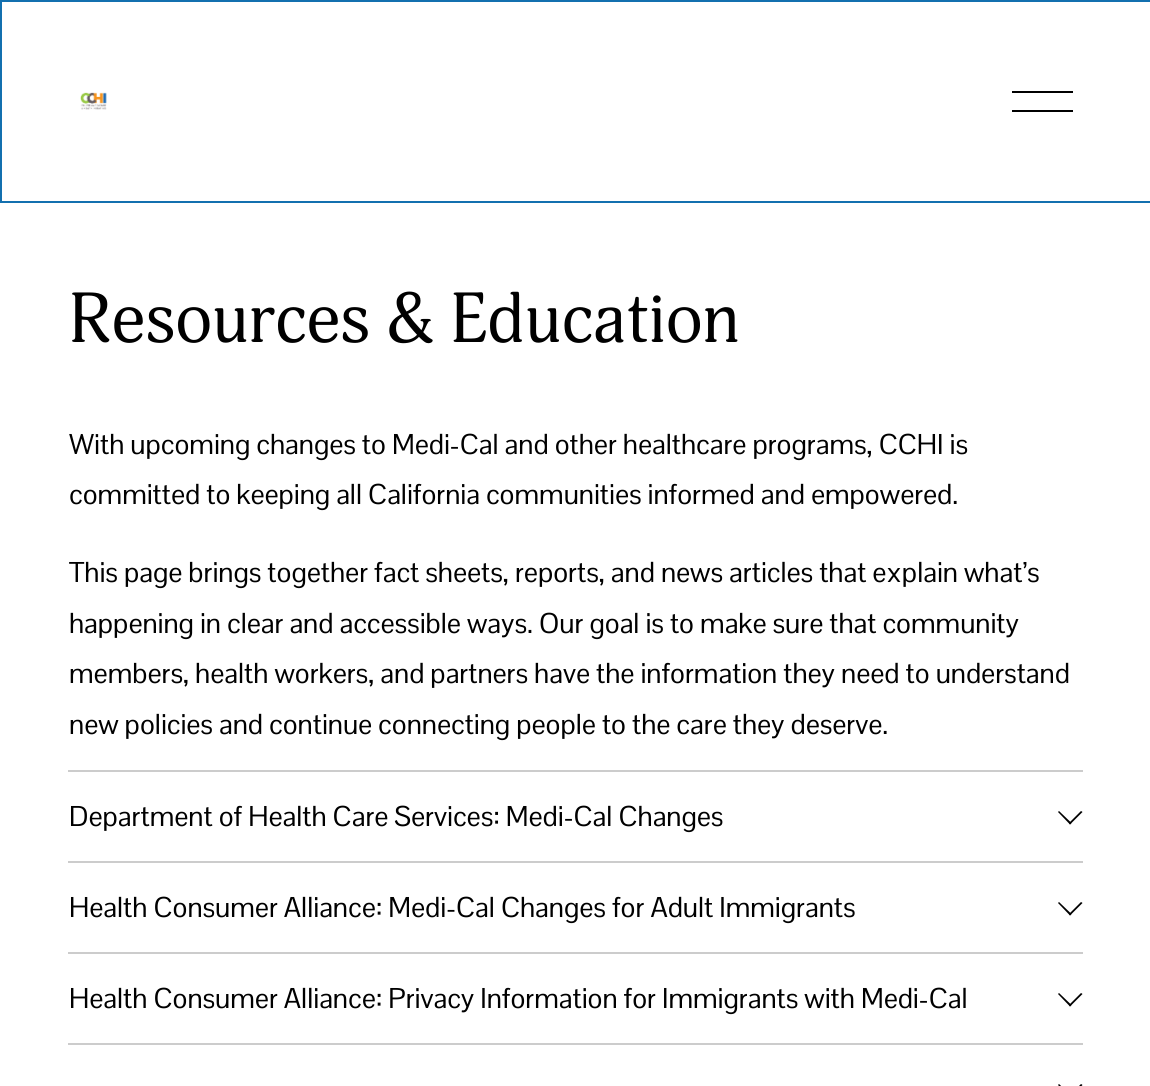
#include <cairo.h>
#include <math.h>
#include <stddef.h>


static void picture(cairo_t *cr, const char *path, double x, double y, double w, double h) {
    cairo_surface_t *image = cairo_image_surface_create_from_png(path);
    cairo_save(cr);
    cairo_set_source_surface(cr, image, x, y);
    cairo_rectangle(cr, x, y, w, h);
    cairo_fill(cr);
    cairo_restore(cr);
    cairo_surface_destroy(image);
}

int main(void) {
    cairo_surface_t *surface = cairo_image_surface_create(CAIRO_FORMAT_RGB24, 1150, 1086);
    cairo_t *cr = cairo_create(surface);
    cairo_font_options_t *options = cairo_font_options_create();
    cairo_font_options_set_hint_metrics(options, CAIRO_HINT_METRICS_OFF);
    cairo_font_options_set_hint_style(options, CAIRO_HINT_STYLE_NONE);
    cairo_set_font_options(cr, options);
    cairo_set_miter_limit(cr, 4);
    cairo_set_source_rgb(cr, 1, 1, 1);
    cairo_paint(cr);
    cairo_rectangle(cr, 1, 1, 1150, 201);
    cairo_set_source_rgb(cr, 0.078, 0.439, 0.686);
    cairo_stroke(cr);
    picture(cr, "img1.png", 80, 92, 27, 18);
    cairo_set_source_rgb(cr, 0, 0, 0);
    cairo_rectangle(cr, 1012, 91, 61, 2);
    cairo_fill(cr);
    cairo_rectangle(cr, 1012, 110, 61, 2);
    cairo_fill(cr);
    cairo_select_font_face(cr, "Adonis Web", CAIRO_FONT_SLANT_NORMAL, CAIRO_FONT_WEIGHT_NORMAL);
    cairo_set_font_size(cr, 69.5);
    cairo_move_to(cr, 69, 342);
    cairo_show_text(cr, "Resources & Education");
    cairo_select_font_face(cr, "Pontano Sans", CAIRO_FONT_SLANT_NORMAL, CAIRO_FONT_WEIGHT_NORMAL);
    cairo_set_font_size(cr, 28);
    cairo_move_to(cr, 69, 454);
    cairo_show_text(cr, "With upcoming changes to Medi-Cal and other healthcare programs, CCHI is");
    cairo_move_to(cr, 69, 504);
    cairo_show_text(cr, "committed to keeping all California communities informed and empowered.");
    cairo_move_to(cr, 69, 582);
    cairo_show_text(cr, "This page brings together fact sheets, reports, and news articles that explain what’s");
    cairo_move_to(cr, 69, 633);
    cairo_show_text(cr, "happening in clear and accessible ways. Our goal is to make sure that community");
    cairo_move_to(cr, 69, 683);
    cairo_show_text(cr, "members, health workers, and partners have the information they need to understand");
    cairo_move_to(cr, 69, 734);
    cairo_show_text(cr, "new policies and continue connecting people to the care they deserve.");
    cairo_set_source_rgb(cr, 0.8, 0.8, 0.8);
    cairo_rectangle(cr, 68, 770, 1015, 2);
    cairo_fill(cr);
    cairo_set_source_rgb(cr, 0, 0, 0);
    cairo_move_to(cr, 69, 826);
    cairo_show_text(cr, "Department of Health Care Services: Medi-Cal Changes");
    cairo_new_path(cr);
    cairo_move_to(cr, 1081, 811);
    cairo_line_to(cr, 1082.5, 812);
    cairo_line_to(cr, 1070, 824.5);
    cairo_line_to(cr, 1069, 823);
    cairo_close_path(cr);
    cairo_fill(cr);
    cairo_new_path(cr);
    cairo_move_to(cr, 1059, 811);
    cairo_line_to(cr, 1071.5, 823);
    cairo_line_to(cr, 1070, 824.5);
    cairo_line_to(cr, 1058, 812);
    cairo_close_path(cr);
    cairo_fill(cr);
    cairo_set_source_rgb(cr, 0.8, 0.8, 0.8);
    cairo_rectangle(cr, 68, 861, 1015, 2);
    cairo_fill(cr);
    cairo_set_source_rgb(cr, 0, 0, 0);
    cairo_move_to(cr, 69, 917);
    cairo_show_text(cr, "Health Consumer Alliance: Medi-Cal Changes for Adult Immigrants");
    cairo_new_path(cr);
    cairo_move_to(cr, 1081, 902);
    cairo_line_to(cr, 1082.5, 903);
    cairo_line_to(cr, 1070, 915.5);
    cairo_line_to(cr, 1069, 914);
    cairo_close_path(cr);
    cairo_fill(cr);
    cairo_new_path(cr);
    cairo_move_to(cr, 1059, 902);
    cairo_line_to(cr, 1071.5, 914);
    cairo_line_to(cr, 1070, 915.5);
    cairo_line_to(cr, 1058, 903);
    cairo_close_path(cr);
    cairo_fill(cr);
    cairo_set_source_rgb(cr, 0.8, 0.8, 0.8);
    cairo_rectangle(cr, 68, 952, 1015, 2);
    cairo_fill(cr);
    cairo_set_source_rgb(cr, 0, 0, 0);
    cairo_move_to(cr, 69, 1008);
    cairo_show_text(cr, "Health Consumer Alliance: Privacy Information for Immigrants with Medi-Cal");
    cairo_new_path(cr);
    cairo_move_to(cr, 1081, 993);
    cairo_line_to(cr, 1082.5, 994);
    cairo_line_to(cr, 1070, 1006.5);
    cairo_line_to(cr, 1069, 1005);
    cairo_close_path(cr);
    cairo_fill(cr);
    cairo_new_path(cr);
    cairo_move_to(cr, 1059, 993);
    cairo_line_to(cr, 1071.5, 1005);
    cairo_line_to(cr, 1070, 1006.5);
    cairo_line_to(cr, 1058, 994);
    cairo_close_path(cr);
    cairo_fill(cr);
    cairo_set_source_rgb(cr, 0.8, 0.8, 0.8);
    cairo_rectangle(cr, 68, 1043, 1015, 2);
    cairo_fill(cr);
    cairo_set_source_rgb(cr, 0, 0, 0);
    cairo_new_path(cr);
    cairo_move_to(cr, 1081, 1084);
    cairo_line_to(cr, 1082.5, 1085);
    cairo_line_to(cr, 1070, 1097.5);
    cairo_line_to(cr, 1069, 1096);
    cairo_close_path(cr);
    cairo_move_to(cr, 1059, 1084);
    cairo_line_to(cr, 1071.5, 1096);
    cairo_line_to(cr, 1070, 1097.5);
    cairo_line_to(cr, 1058, 1085);
    cairo_close_path(cr);
    cairo_fill(cr);
    cairo_surface_write_to_png(surface, "page.png");
    cairo_font_options_destroy(options);
    cairo_destroy(cr);
    cairo_surface_destroy(surface);
    return 0;
}
